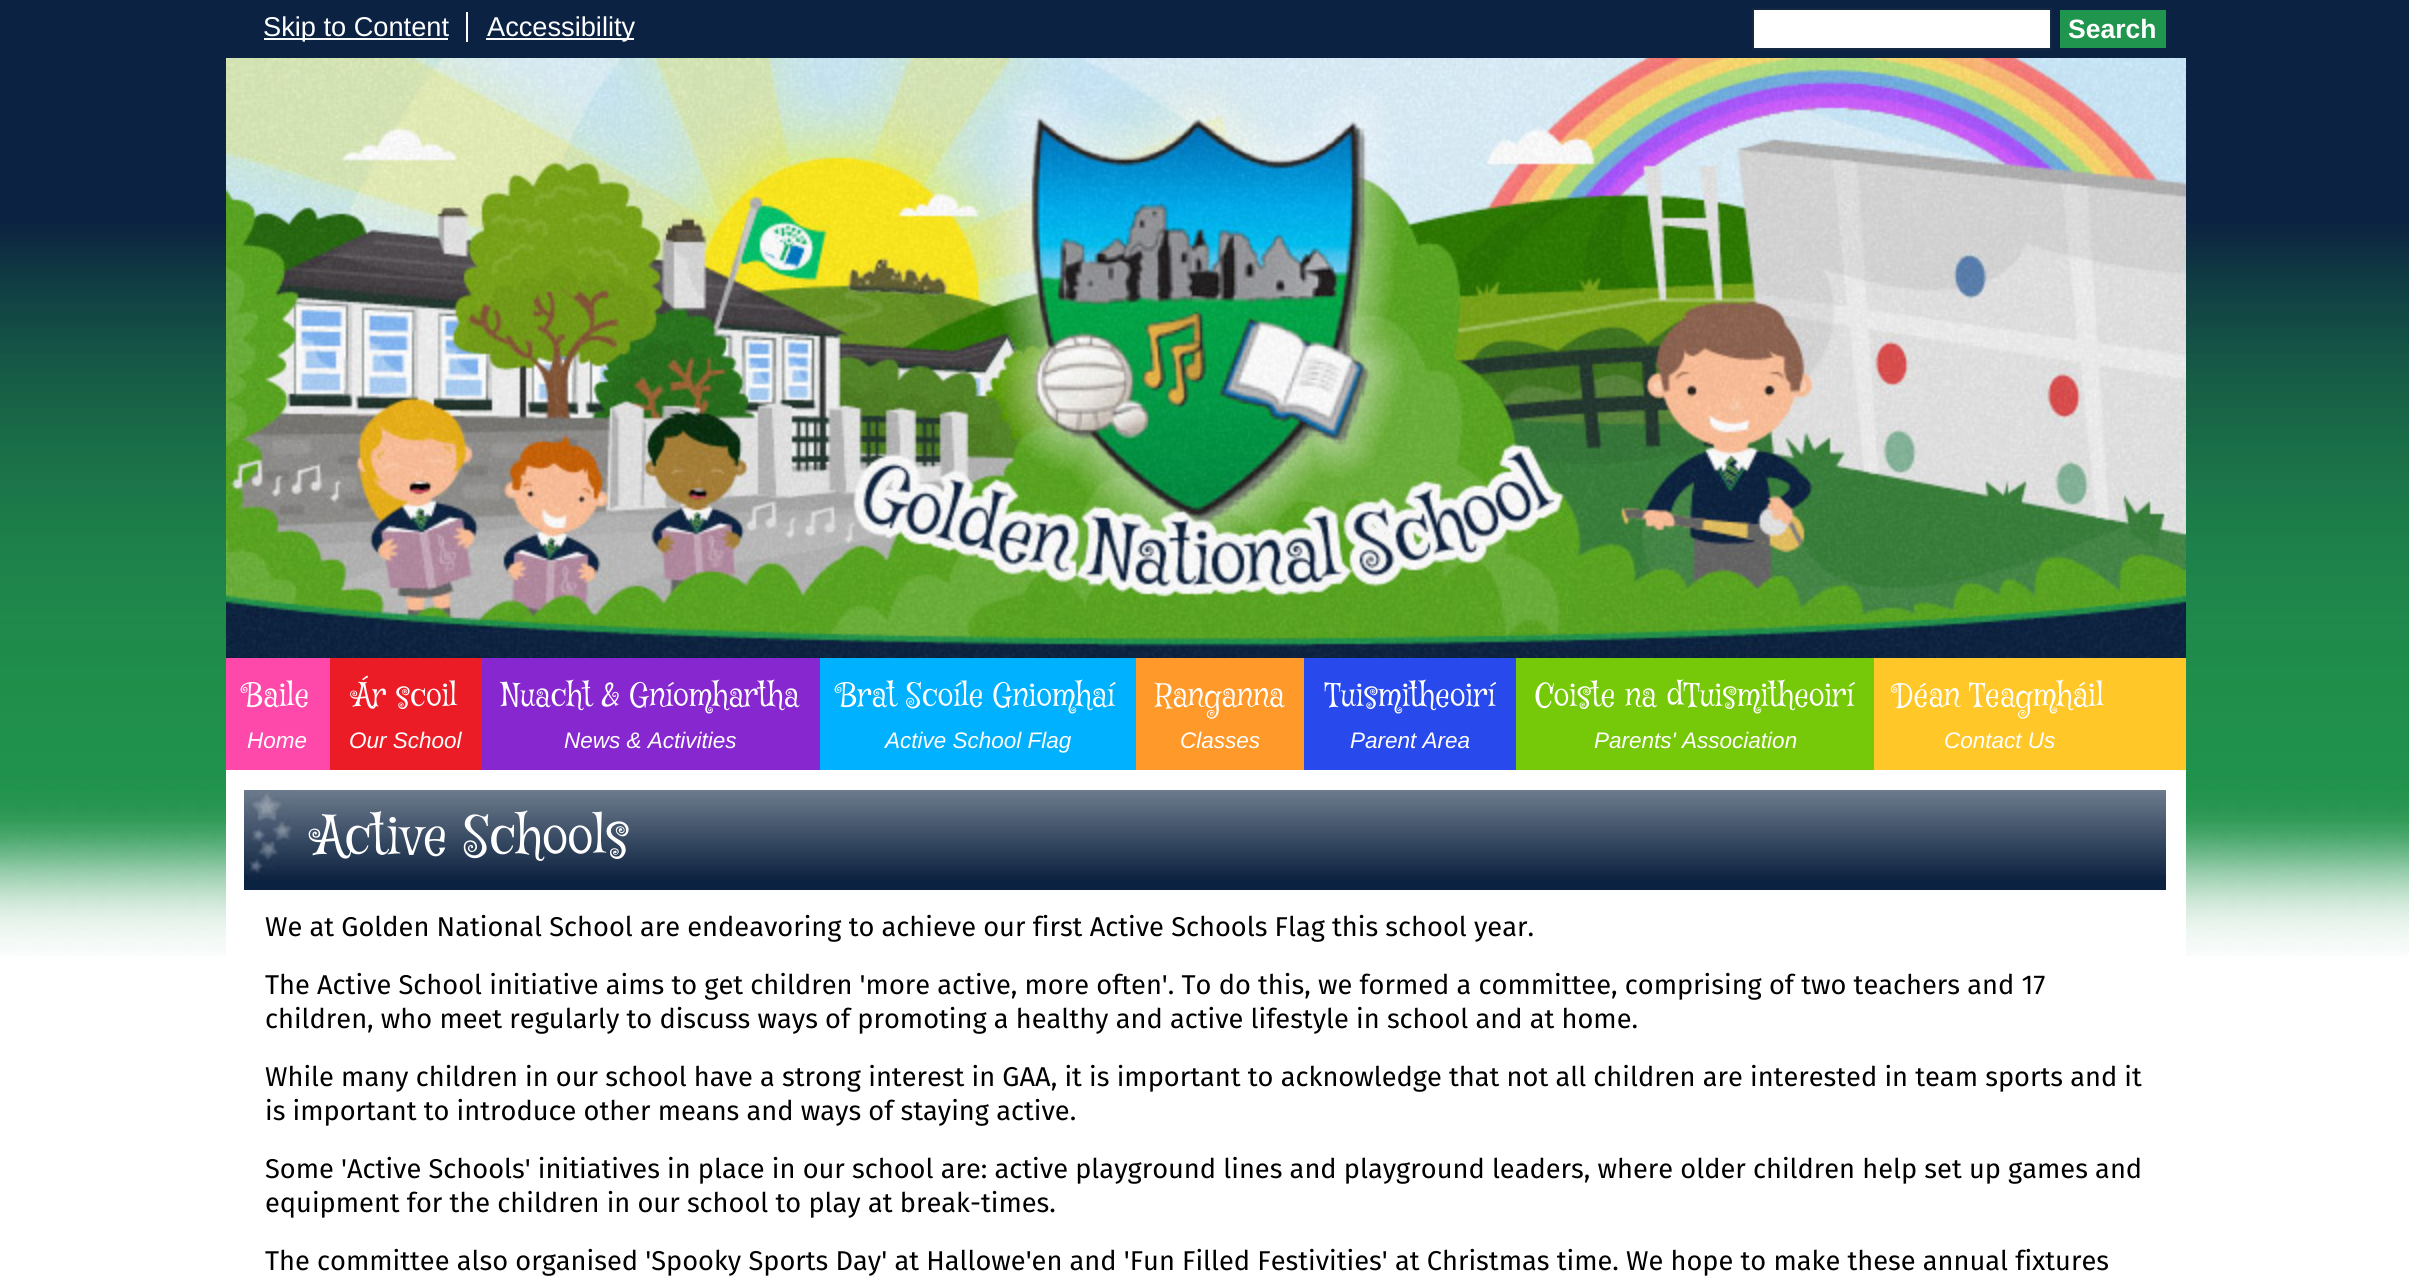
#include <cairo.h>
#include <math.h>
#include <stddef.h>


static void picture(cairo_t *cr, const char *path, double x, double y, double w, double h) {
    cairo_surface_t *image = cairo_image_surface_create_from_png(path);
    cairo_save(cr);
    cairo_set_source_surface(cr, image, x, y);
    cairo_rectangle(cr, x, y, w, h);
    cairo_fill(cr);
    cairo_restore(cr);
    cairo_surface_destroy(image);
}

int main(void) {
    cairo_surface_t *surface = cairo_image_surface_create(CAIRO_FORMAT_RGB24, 2409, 1279);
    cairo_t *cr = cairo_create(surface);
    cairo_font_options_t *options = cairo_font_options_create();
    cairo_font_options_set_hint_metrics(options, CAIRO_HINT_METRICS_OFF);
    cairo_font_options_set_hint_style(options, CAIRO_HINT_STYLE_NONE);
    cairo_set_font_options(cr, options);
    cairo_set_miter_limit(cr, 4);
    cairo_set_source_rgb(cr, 1, 1, 1);
    cairo_paint(cr);
    picture(cr, "img1.png", 0, 0, 2409, 956);
    cairo_set_source_rgb(cr, 1, 1, 1);
    cairo_rectangle(cr, 264, 38, 184, 2);
    cairo_fill(cr);
    cairo_select_font_face(cr, "Liberation Sans", CAIRO_FONT_SLANT_NORMAL, CAIRO_FONT_WEIGHT_NORMAL);
    cairo_set_font_size(cr, 27.2);
    cairo_move_to(cr, 263, 36);
    cairo_show_text(cr, "Skip to Content");
    cairo_rectangle(cr, 466, 12, 2, 30);
    cairo_fill(cr);
    cairo_rectangle(cr, 486, 38, 148, 2);
    cairo_fill(cr);
    cairo_move_to(cr, 487, 36);
    cairo_show_text(cr, "Accessibility");
    cairo_rectangle(cr, 1753, 9, 298, 40);
    cairo_fill_preserve(cr);
    cairo_set_source_rgb(cr, 0.082, 0.161, 0.255);
    cairo_stroke(cr);
    cairo_set_source_rgb(cr, 0.125, 0.584, 0.306);
    cairo_rectangle(cr, 2060, 10, 106, 38);
    cairo_fill(cr);
    cairo_select_font_face(cr, "Liberation Sans", CAIRO_FONT_SLANT_NORMAL, CAIRO_FONT_WEIGHT_BOLD);
    cairo_set_font_size(cr, 26.5);
    cairo_set_source_rgb(cr, 1, 1, 1);
    cairo_move_to(cr, 2068, 38);
    cairo_show_text(cr, "Search");
    picture(cr, "img2.png", 226, 58, 1960, 600);
    cairo_set_source_rgb(cr, 1, 0.78, 0.157);
    cairo_rectangle(cr, 1874, 658, 312, 112);
    cairo_fill(cr);
    cairo_set_source_rgb(cr, 0.996, 0.286, 0.667);
    cairo_rectangle(cr, 226, 658, 104, 112);
    cairo_fill(cr);
    cairo_select_font_face(cr, "Mystery Quest", CAIRO_FONT_SLANT_NORMAL, CAIRO_FONT_WEIGHT_NORMAL);
    cairo_set_font_size(cr, 32);
    cairo_set_source_rgb(cr, 1, 1, 1);
    cairo_move_to(cr, 245, 706);
    cairo_show_text(cr, "Baile");
    cairo_select_font_face(cr, "Liberation Sans", CAIRO_FONT_SLANT_ITALIC, CAIRO_FONT_WEIGHT_NORMAL);
    cairo_set_font_size(cr, 22.5);
    cairo_move_to(cr, 247, 748);
    cairo_show_text(cr, "Home");
    cairo_set_source_rgb(cr, 0.922, 0.11, 0.149);
    cairo_rectangle(cr, 330, 658, 152, 112);
    cairo_fill(cr);
    cairo_select_font_face(cr, "Mystery Quest", CAIRO_FONT_SLANT_NORMAL, CAIRO_FONT_WEIGHT_NORMAL);
    cairo_set_font_size(cr, 32);
    cairo_set_source_rgb(cr, 1, 1, 1);
    cairo_move_to(cr, 354, 706);
    cairo_show_text(cr, "Ár scoil");
    cairo_select_font_face(cr, "Liberation Sans", CAIRO_FONT_SLANT_ITALIC, CAIRO_FONT_WEIGHT_NORMAL);
    cairo_set_font_size(cr, 22.5);
    cairo_move_to(cr, 349, 748);
    cairo_show_text(cr, "Our School");
    cairo_set_source_rgb(cr, 0.529, 0.153, 0.812);
    cairo_rectangle(cr, 482, 658, 338, 112);
    cairo_fill(cr);
    cairo_select_font_face(cr, "Mystery Quest", CAIRO_FONT_SLANT_NORMAL, CAIRO_FONT_WEIGHT_NORMAL);
    cairo_set_font_size(cr, 32);
    cairo_set_source_rgb(cr, 1, 1, 1);
    cairo_move_to(cr, 501, 706);
    cairo_show_text(cr, "Nuacht & Gníomhartha");
    cairo_select_font_face(cr, "Liberation Sans", CAIRO_FONT_SLANT_ITALIC, CAIRO_FONT_WEIGHT_NORMAL);
    cairo_set_font_size(cr, 22.5);
    cairo_move_to(cr, 564, 748);
    cairo_show_text(cr, "News & Activities");
    cairo_set_source_rgb(cr, 0, 0.694, 1);
    cairo_rectangle(cr, 820, 658, 316, 112);
    cairo_fill(cr);
    cairo_select_font_face(cr, "Mystery Quest", CAIRO_FONT_SLANT_NORMAL, CAIRO_FONT_WEIGHT_NORMAL);
    cairo_set_font_size(cr, 32);
    cairo_set_source_rgb(cr, 1, 1, 1);
    cairo_move_to(cr, 839, 706);
    cairo_show_text(cr, "Brat Scoíle Gniomhaí");
    cairo_select_font_face(cr, "Liberation Sans", CAIRO_FONT_SLANT_ITALIC, CAIRO_FONT_WEIGHT_NORMAL);
    cairo_set_font_size(cr, 22.5);
    cairo_move_to(cr, 885, 748);
    cairo_show_text(cr, "Active School Flag");
    cairo_set_source_rgb(cr, 1, 0.6, 0.165);
    cairo_rectangle(cr, 1136, 658, 168, 112);
    cairo_fill(cr);
    cairo_select_font_face(cr, "Mystery Quest", CAIRO_FONT_SLANT_NORMAL, CAIRO_FONT_WEIGHT_NORMAL);
    cairo_set_font_size(cr, 32);
    cairo_set_source_rgb(cr, 1, 1, 1);
    cairo_move_to(cr, 1155, 706);
    cairo_show_text(cr, "Ranganna");
    cairo_select_font_face(cr, "Liberation Sans", CAIRO_FONT_SLANT_ITALIC, CAIRO_FONT_WEIGHT_NORMAL);
    cairo_set_font_size(cr, 22.5);
    cairo_move_to(cr, 1180, 748);
    cairo_show_text(cr, "Classes");
    cairo_set_source_rgb(cr, 0.157, 0.286, 0.925);
    cairo_rectangle(cr, 1304, 658, 212, 112);
    cairo_fill(cr);
    cairo_select_font_face(cr, "Mystery Quest", CAIRO_FONT_SLANT_NORMAL, CAIRO_FONT_WEIGHT_NORMAL);
    cairo_set_font_size(cr, 32);
    cairo_set_source_rgb(cr, 1, 1, 1);
    cairo_move_to(cr, 1325, 706);
    cairo_show_text(cr, "Tuismitheoirí");
    cairo_select_font_face(cr, "Liberation Sans", CAIRO_FONT_SLANT_ITALIC, CAIRO_FONT_WEIGHT_NORMAL);
    cairo_set_font_size(cr, 22.5);
    cairo_move_to(cr, 1350, 748);
    cairo_show_text(cr, "Parent Area");
    cairo_set_source_rgb(cr, 0.463, 0.788, 0.035);
    cairo_rectangle(cr, 1516, 658, 358, 112);
    cairo_fill(cr);
    cairo_select_font_face(cr, "Mystery Quest", CAIRO_FONT_SLANT_NORMAL, CAIRO_FONT_WEIGHT_NORMAL);
    cairo_set_font_size(cr, 32);
    cairo_set_source_rgb(cr, 1, 1, 1);
    cairo_move_to(cr, 1535, 706);
    cairo_show_text(cr, "Coiste na dTuismitheoirí");
    cairo_select_font_face(cr, "Liberation Sans", CAIRO_FONT_SLANT_ITALIC, CAIRO_FONT_WEIGHT_NORMAL);
    cairo_set_font_size(cr, 22.5);
    cairo_move_to(cr, 1594, 748);
    cairo_show_text(cr, "Parents' Association");
    cairo_select_font_face(cr, "Mystery Quest", CAIRO_FONT_SLANT_NORMAL, CAIRO_FONT_WEIGHT_NORMAL);
    cairo_set_font_size(cr, 32);
    cairo_move_to(cr, 1894, 706);
    cairo_show_text(cr, "Déan Teagmháil");
    cairo_select_font_face(cr, "Liberation Sans", CAIRO_FONT_SLANT_ITALIC, CAIRO_FONT_WEIGHT_NORMAL);
    cairo_set_font_size(cr, 22.5);
    cairo_move_to(cr, 1944, 748);
    cairo_show_text(cr, "Contact Us");
    cairo_rectangle(cr, 226, 770, 1960, 186);
    cairo_fill(cr);
    cairo_set_source_rgb(cr, 0.043, 0.133, 0.255);
    cairo_rectangle(cr, 244, 880, 1922, 10);
    cairo_fill(cr);
    picture(cr, "img3.png", 244, 790, 1922, 90);
    cairo_select_font_face(cr, "Mystery Quest", CAIRO_FONT_SLANT_NORMAL, CAIRO_FONT_WEIGHT_NORMAL);
    cairo_set_font_size(cr, 52.75);
    cairo_set_source_rgb(cr, 1, 1, 1);
    cairo_move_to(cr, 315, 854);
    cairo_show_text(cr, "Active Schools");
    cairo_select_font_face(cr, "Fira Sans", CAIRO_FONT_SLANT_NORMAL, CAIRO_FONT_WEIGHT_NORMAL);
    cairo_set_font_size(cr, 27.2);
    cairo_set_source_rgb(cr, 0, 0, 0);
    cairo_move_to(cr, 265, 936);
    cairo_show_text(cr, "We at Golden National School are endeavoring to achieve our first Active Schools Flag this school year.");
    cairo_move_to(cr, 265, 994);
    cairo_show_text(cr, "The Active School initiative aims to get children 'more active, more often'. To do this, we formed a committee, comprising of two teachers and 17");
    cairo_move_to(cr, 265, 1028);
    cairo_show_text(cr, "children, who meet regularly to discuss ways of promoting a healthy and active lifestyle in school and at home.");
    cairo_move_to(cr, 265, 1086);
    cairo_show_text(cr, "While many children in our school have a strong interest in GAA, it is important to acknowledge that not all children are interested in team sports and it");
    cairo_move_to(cr, 265, 1120);
    cairo_show_text(cr, "is important to introduce other means and ways of staying active.");
    cairo_move_to(cr, 265, 1178);
    cairo_show_text(cr, "Some 'Active Schools' initiatives in place in our school are: active playground lines and playground leaders, where older children help set up games and");
    cairo_move_to(cr, 265, 1212);
    cairo_show_text(cr, "equipment for the children in our school to play at break-times.");
    cairo_move_to(cr, 265, 1270);
    cairo_show_text(cr, "The committee also organised 'Spooky Sports Day' at Hallowe'en and 'Fun Filled Festivities' at Christmas time. We hope to make these annual fixtures");
    cairo_surface_write_to_png(surface, "page.png");
    cairo_font_options_destroy(options);
    cairo_destroy(cr);
    cairo_surface_destroy(surface);
    return 0;
}
